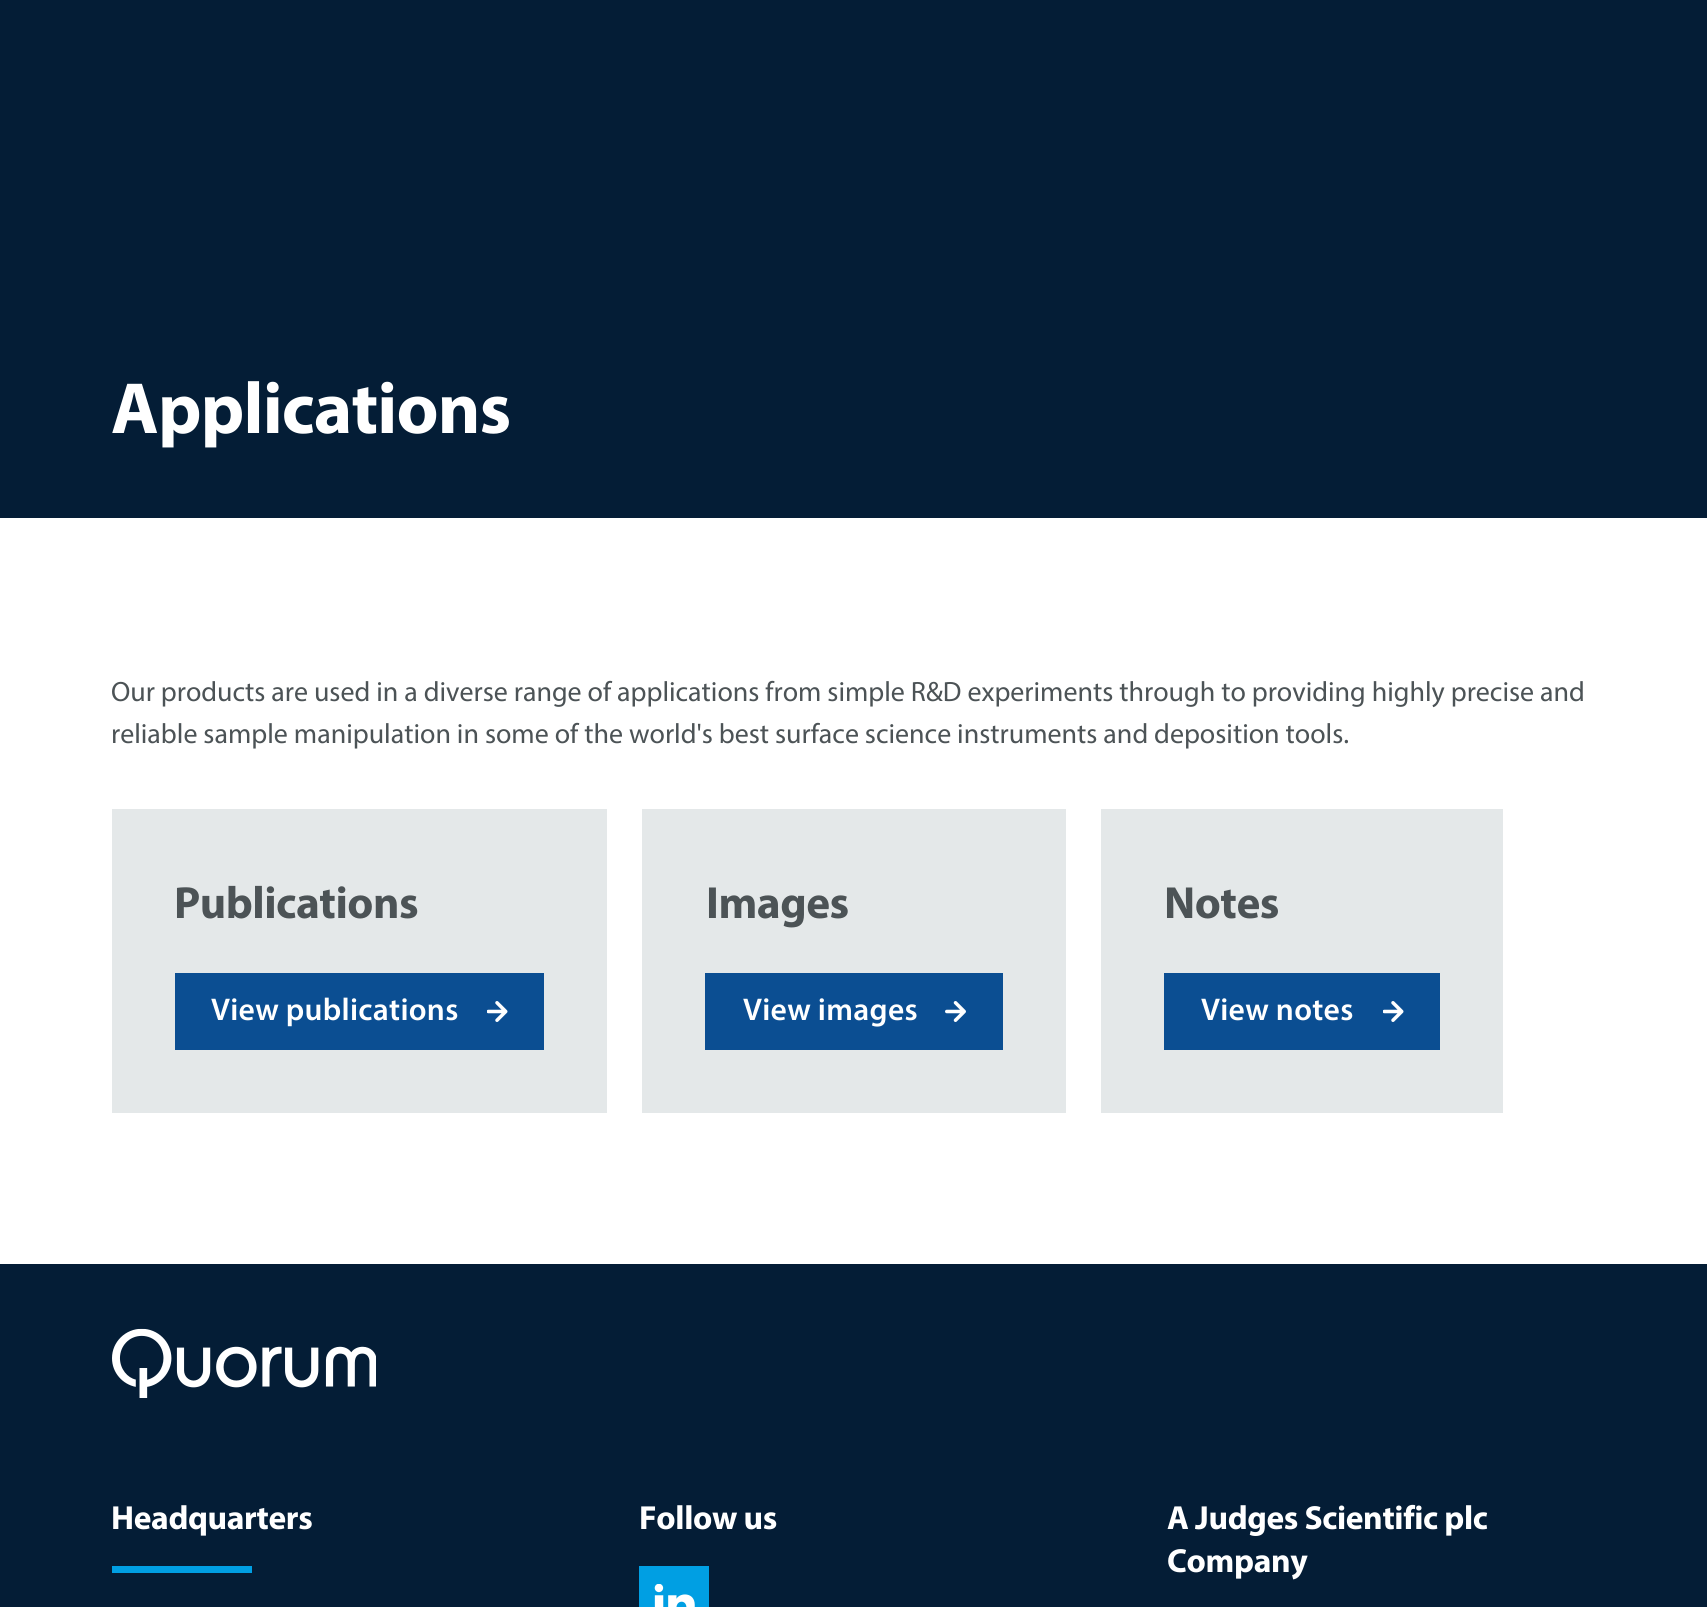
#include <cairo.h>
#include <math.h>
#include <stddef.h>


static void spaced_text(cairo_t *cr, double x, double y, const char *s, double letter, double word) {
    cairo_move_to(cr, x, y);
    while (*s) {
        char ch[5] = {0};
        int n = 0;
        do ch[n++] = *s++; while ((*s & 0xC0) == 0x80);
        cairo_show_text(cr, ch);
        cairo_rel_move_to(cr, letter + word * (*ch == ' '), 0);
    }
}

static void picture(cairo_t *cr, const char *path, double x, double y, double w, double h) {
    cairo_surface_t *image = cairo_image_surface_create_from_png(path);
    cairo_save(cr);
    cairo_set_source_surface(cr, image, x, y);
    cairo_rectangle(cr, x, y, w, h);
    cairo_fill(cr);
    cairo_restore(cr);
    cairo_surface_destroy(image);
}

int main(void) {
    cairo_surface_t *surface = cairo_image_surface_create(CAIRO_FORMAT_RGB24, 1707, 1607);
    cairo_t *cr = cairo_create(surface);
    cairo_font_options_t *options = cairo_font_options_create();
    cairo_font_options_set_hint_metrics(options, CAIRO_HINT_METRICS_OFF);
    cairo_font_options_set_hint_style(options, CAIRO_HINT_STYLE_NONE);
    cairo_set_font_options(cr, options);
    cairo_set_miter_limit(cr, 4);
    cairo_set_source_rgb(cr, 1, 1, 1);
    cairo_paint(cr);
    cairo_set_source_rgb(cr, 0.016, 0.114, 0.212);
    cairo_rectangle(cr, 0, 0, 1707, 518);
    cairo_fill(cr);
    cairo_select_font_face(cr, "Myriad", CAIRO_FONT_SLANT_NORMAL, CAIRO_FONT_WEIGHT_BOLD);
    cairo_set_font_size(cr, 73);
    cairo_set_source_rgb(cr, 1, 1, 1);
    spaced_text(cr, 111, 433, "Applications", -0.9, 0);
    cairo_select_font_face(cr, "Myriad", CAIRO_FONT_SLANT_NORMAL, CAIRO_FONT_WEIGHT_NORMAL);
    cairo_set_font_size(cr, 28);
    cairo_set_source_rgb(cr, 0.298, 0.325, 0.337);
    cairo_move_to(cr, 111, 701);
    cairo_show_text(cr, "Our products are used in a diverse range of applications from simple R&D experiments through to providing highly precise and");
    cairo_move_to(cr, 111, 743);
    cairo_show_text(cr, "reliable sample manipulation in some of the world's best surface science instruments and deposition tools.");
    cairo_set_source_rgb(cr, 0.894, 0.91, 0.914);
    cairo_rectangle(cr, 112, 809, 495, 304);
    cairo_fill(cr);
    cairo_select_font_face(cr, "Myriad", CAIRO_FONT_SLANT_NORMAL, CAIRO_FONT_WEIGHT_BOLD);
    cairo_set_font_size(cr, 45.25);
    cairo_set_source_rgb(cr, 0.298, 0.325, 0.337);
    spaced_text(cr, 174, 918, "Publications", -0.5, 0);
    cairo_set_source_rgb(cr, 0.043, 0.306, 0.573);
    cairo_rectangle(cr, 175, 973, 369, 77);
    cairo_fill(cr);
    cairo_select_font_face(cr, "Myriad SemiBold", CAIRO_FONT_SLANT_NORMAL, CAIRO_FONT_WEIGHT_NORMAL);
    cairo_set_font_size(cr, 31.5);
    cairo_set_source_rgb(cr, 1, 1, 1);
    spaced_text(cr, 211, 1020, "View publications", 0.3, 0);
    picture(cr, "img1.png", 487, 1001, 21, 21);
    cairo_set_source_rgb(cr, 0.894, 0.91, 0.914);
    cairo_rectangle(cr, 642, 809, 424, 304);
    cairo_fill(cr);
    cairo_select_font_face(cr, "Myriad", CAIRO_FONT_SLANT_NORMAL, CAIRO_FONT_WEIGHT_BOLD);
    cairo_set_font_size(cr, 45.25);
    cairo_set_source_rgb(cr, 0.298, 0.325, 0.337);
    spaced_text(cr, 706, 918, "Images", -0.5, 0);
    cairo_set_source_rgb(cr, 0.043, 0.306, 0.573);
    cairo_rectangle(cr, 705, 973, 298, 77);
    cairo_fill(cr);
    cairo_select_font_face(cr, "Myriad SemiBold", CAIRO_FONT_SLANT_NORMAL, CAIRO_FONT_WEIGHT_NORMAL);
    cairo_set_font_size(cr, 31.5);
    cairo_set_source_rgb(cr, 1, 1, 1);
    spaced_text(cr, 743, 1020, "View images", 0.3, 0);
    picture(cr, "img2.png", 945, 1001, 21, 21);
    cairo_set_source_rgb(cr, 0.894, 0.91, 0.914);
    cairo_rectangle(cr, 1101, 809, 402, 304);
    cairo_fill(cr);
    cairo_select_font_face(cr, "Myriad", CAIRO_FONT_SLANT_NORMAL, CAIRO_FONT_WEIGHT_BOLD);
    cairo_set_font_size(cr, 45.25);
    cairo_set_source_rgb(cr, 0.298, 0.325, 0.337);
    spaced_text(cr, 1164, 918, "Notes", -0.5, 0);
    cairo_set_source_rgb(cr, 0.043, 0.306, 0.573);
    cairo_rectangle(cr, 1164, 973, 276, 77);
    cairo_fill(cr);
    cairo_select_font_face(cr, "Myriad SemiBold", CAIRO_FONT_SLANT_NORMAL, CAIRO_FONT_WEIGHT_NORMAL);
    cairo_set_font_size(cr, 31.5);
    cairo_set_source_rgb(cr, 1, 1, 1);
    spaced_text(cr, 1201, 1020, "View notes", 0.3, 0);
    picture(cr, "img1.png", 1383, 1001, 21, 21);
    cairo_set_source_rgb(cr, 0.016, 0.114, 0.212);
    cairo_rectangle(cr, 0, 1264, 1707, 343);
    cairo_fill(cr);
    picture(cr, "img3.png", 112, 1328, 264, 70);
    cairo_select_font_face(cr, "Myriad", CAIRO_FONT_SLANT_NORMAL, CAIRO_FONT_WEIGHT_BOLD);
    cairo_set_font_size(cr, 33.5);
    cairo_set_source_rgb(cr, 1, 1, 1);
    spaced_text(cr, 111, 1529, "Headquarters", -0.35, 0);
    cairo_set_source_rgb(cr, 0, 0.624, 0.89);
    cairo_rectangle(cr, 112, 1566, 140, 7);
    cairo_fill(cr);
    cairo_set_source_rgb(cr, 1, 1, 1);
    spaced_text(cr, 639, 1529, "Follow us", -0.35, 0);
    cairo_set_source_rgb(cr, 0, 0.624, 0.89);
    cairo_rectangle(cr, 639, 1566, 70, 41);
    cairo_fill(cr);
    picture(cr, "img4.png", 654, 1584, 41, 23);
    cairo_set_source_rgb(cr, 1, 1, 1);
    spaced_text(cr, 1167, 1529, "A Judges Scientific plc", -0.35, 0);
    spaced_text(cr, 1167, 1572, "Company", -0.35, 0);
    cairo_surface_write_to_png(surface, "page.png");
    cairo_font_options_destroy(options);
    cairo_destroy(cr);
    cairo_surface_destroy(surface);
    return 0;
}
